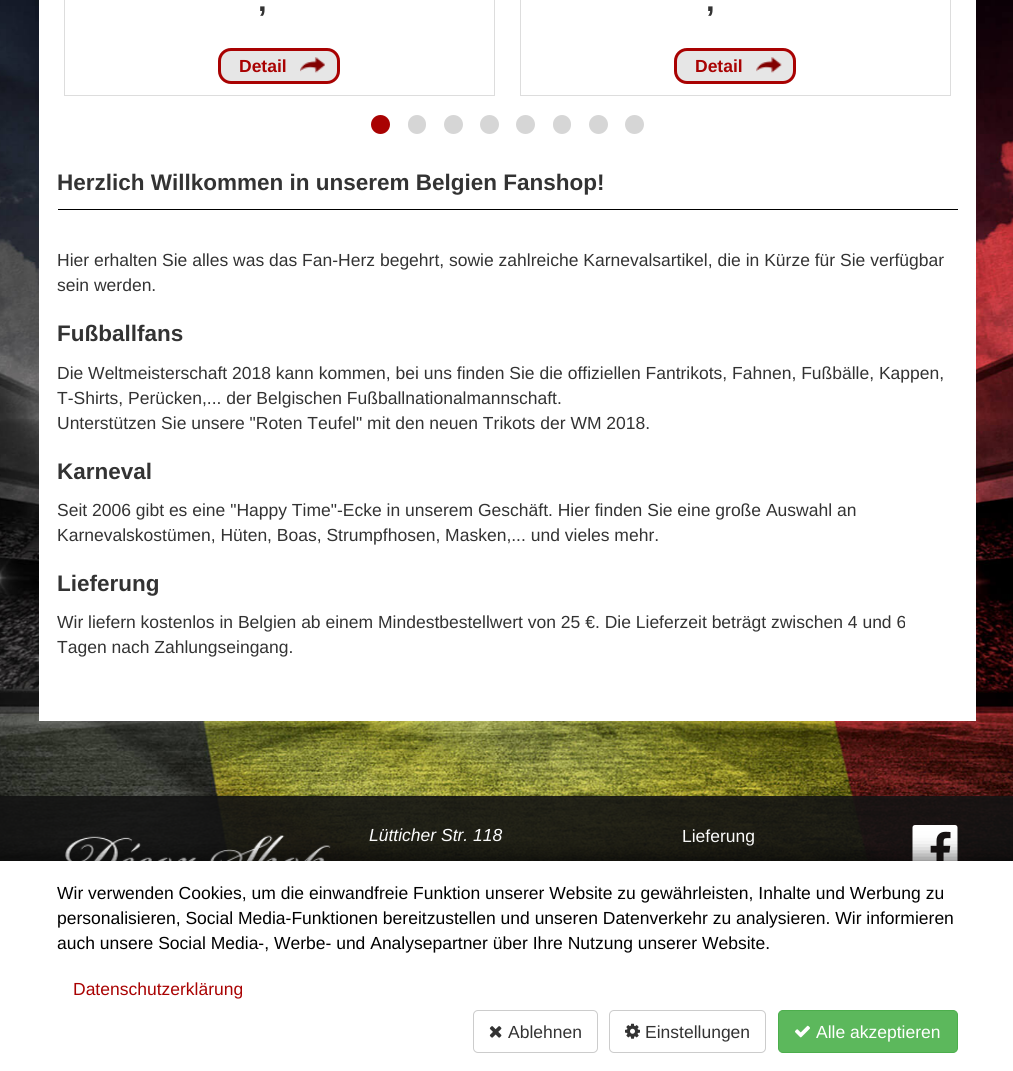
#include <cairo.h>
#include <math.h>
#include <stddef.h>


static void round_rect(cairo_t *cr, double x, double y, double w, double h, double r) {
    cairo_new_sub_path(cr);
    cairo_arc(cr, x + w - r, y + h - r, r, 0, M_PI / 2);
    cairo_arc(cr, x + r, y + h - r, r, M_PI / 2, M_PI);
    cairo_arc(cr, x + r, y + r, r, M_PI, 1.5 * M_PI);
    cairo_arc(cr, x + w - r, y + r, r, 1.5 * M_PI, 2 * M_PI);
    cairo_close_path(cr);
}

static void shadow(cairo_t *cr, double x, double y, double w, double h, double r, double blur, double alpha) {
    cairo_push_group_with_content(cr, CAIRO_CONTENT_ALPHA);
    cairo_set_operator(cr, CAIRO_OPERATOR_SOURCE);
    for (int i = 15; i >= -15 && fmin(w, h) + blur * i / 3 > 0; i -= 2) {
        double e = blur * i / 6;
        cairo_set_source_rgba(cr, 0, 0, 0, alpha * erfc((i - 1) / 8.5) / 2);
        round_rect(cr, x - e, y - e, w + 2 * e, h + 2 * e, fmax(0, fmin(r + e + blur * .6, fmin(w, h) / 2 + e)));
        cairo_fill(cr);
    }
    cairo_pattern_t *soft = cairo_pop_group(cr);
    cairo_mask(cr, soft);
    cairo_pattern_destroy(soft);
}

static void picture(cairo_t *cr, const char *path, double x, double y, double w, double h) {
    cairo_surface_t *image = cairo_image_surface_create_from_png(path);
    cairo_save(cr);
    cairo_set_source_surface(cr, image, x, y);
    cairo_rectangle(cr, x, y, w, h);
    cairo_fill(cr);
    cairo_restore(cr);
    cairo_surface_destroy(image);
}

int main(void) {
    cairo_surface_t *surface = cairo_image_surface_create(CAIRO_FORMAT_RGB24, 1013, 1071);
    cairo_t *cr = cairo_create(surface);
    cairo_font_options_t *options = cairo_font_options_create();
    cairo_font_options_set_hint_metrics(options, CAIRO_HINT_METRICS_OFF);
    cairo_font_options_set_hint_style(options, CAIRO_HINT_STYLE_NONE);
    cairo_set_font_options(cr, options);
    cairo_set_miter_limit(cr, 4);
    cairo_set_source_rgb(cr, 1, 1, 1);
    cairo_paint(cr);
    picture(cr, "img1.png", 0, 0, 1013, 861);
    cairo_set_source_rgb(cr, 1, 1, 1);
    cairo_rectangle(cr, 39, 0, 937, 721);
    cairo_fill(cr);
    cairo_rectangle(cr, 64.5, -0.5, 430, 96);
    cairo_set_source_rgb(cr, 0.867, 0.867, 0.867);
    cairo_set_line_width(cr, 1);
    cairo_stroke(cr);
    cairo_select_font_face(cr, "Liberation Sans", CAIRO_FONT_SLANT_NORMAL, CAIRO_FONT_WEIGHT_BOLD);
    cairo_set_font_size(cr, 31);
    cairo_set_source_rgb(cr, 0.2, 0.2, 0.2);
    cairo_move_to(cr, 258, 11);
    cairo_show_text(cr, ",");
    cairo_set_source_rgb(cr, 0.902, 0.902, 0.902);
    round_rect(cr, 218, 48, 122, 36, 13);
    cairo_fill(cr);
    picture(cr, "img2.png", 300, 57, 25, 16);
    round_rect(cr, 219.5, 49.5, 119, 33, 11.5);
    cairo_set_source_rgb(cr, 0.663, 0.008, 0.008);
    cairo_set_line_width(cr, 3);
    cairo_stroke(cr);
    cairo_set_font_size(cr, 17.5);
    cairo_move_to(cr, 239, 72);
    cairo_show_text(cr, "Detail");
    cairo_rectangle(cr, 520.5, -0.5, 430, 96);
    cairo_set_source_rgb(cr, 0.867, 0.867, 0.867);
    cairo_set_line_width(cr, 1);
    cairo_stroke(cr);
    cairo_set_font_size(cr, 31);
    cairo_set_source_rgb(cr, 0.2, 0.2, 0.2);
    cairo_move_to(cr, 706, 11);
    cairo_show_text(cr, ",");
    cairo_set_source_rgb(cr, 0.902, 0.902, 0.902);
    round_rect(cr, 674, 48, 122, 36, 13);
    cairo_fill(cr);
    picture(cr, "img3.png", 756, 57, 26, 16);
    round_rect(cr, 675.5, 49.5, 119, 33, 11.5);
    cairo_set_source_rgb(cr, 0.663, 0.008, 0.008);
    cairo_set_line_width(cr, 3);
    cairo_stroke(cr);
    cairo_set_font_size(cr, 17.5);
    cairo_move_to(cr, 695, 72);
    cairo_show_text(cr, "Detail");
    cairo_new_path(cr);
    cairo_arc(cr, 380.5, 124.5, 9.5, 0, 2 * M_PI);
    cairo_fill(cr);
    cairo_set_source_rgb(cr, 0.839, 0.839, 0.839);
    round_rect(cr, 408, 115, 18, 19, 9);
    cairo_fill(cr);
    cairo_arc(cr, 453.5, 124.5, 9.5, 0, 2 * M_PI);
    cairo_fill(cr);
    cairo_arc(cr, 489.5, 124.5, 9.5, 0, 2 * M_PI);
    cairo_fill(cr);
    cairo_arc(cr, 525.5, 124.5, 9.5, 0, 2 * M_PI);
    cairo_fill(cr);
    round_rect(cr, 553, 115, 18, 19, 9);
    cairo_fill(cr);
    cairo_arc(cr, 598.5, 124.5, 9.5, 0, 2 * M_PI);
    cairo_fill(cr);
    cairo_arc(cr, 634.5, 124.5, 9.5, 0, 2 * M_PI);
    cairo_fill(cr);
    cairo_set_source_rgb(cr, 0, 0, 0);
    cairo_rectangle(cr, 58, 209, 900, 1);
    cairo_fill(cr);
    cairo_set_font_size(cr, 22.5);
    cairo_set_source_rgb(cr, 0.2, 0.2, 0.2);
    cairo_move_to(cr, 57, 190);
    cairo_show_text(cr, "Herzlich Willkommen in unserem Belgien Fanshop!");
    cairo_select_font_face(cr, "Liberation Sans", CAIRO_FONT_SLANT_NORMAL, CAIRO_FONT_WEIGHT_NORMAL);
    cairo_set_font_size(cr, 17.5);
    cairo_move_to(cr, 57, 266);
    cairo_show_text(cr, "Hier erhalten Sie alles was das Fan-Herz begehrt, sowie zahlreiche Karnevalsartikel, die in Kürze für Sie verfügbar");
    cairo_move_to(cr, 57, 291);
    cairo_show_text(cr, "sein werden.");
    cairo_select_font_face(cr, "Liberation Sans", CAIRO_FONT_SLANT_NORMAL, CAIRO_FONT_WEIGHT_BOLD);
    cairo_set_font_size(cr, 22.5);
    cairo_move_to(cr, 57, 341);
    cairo_show_text(cr, "Fußballfans");
    cairo_select_font_face(cr, "Liberation Sans", CAIRO_FONT_SLANT_NORMAL, CAIRO_FONT_WEIGHT_NORMAL);
    cairo_set_font_size(cr, 17.5);
    cairo_move_to(cr, 57, 379);
    cairo_show_text(cr, "Die Weltmeisterschaft 2018 kann kommen, bei uns finden Sie die offiziellen Fantrikots, Fahnen, Fußbälle, Kappen,");
    cairo_move_to(cr, 57, 404);
    cairo_show_text(cr, "T-Shirts, Perücken,... der Belgischen Fußballnationalmannschaft.");
    cairo_move_to(cr, 57, 429);
    cairo_show_text(cr, "Unterstützen Sie unsere \"Roten Teufel\" mit den neuen Trikots der WM 2018.");
    cairo_select_font_face(cr, "Liberation Sans", CAIRO_FONT_SLANT_NORMAL, CAIRO_FONT_WEIGHT_BOLD);
    cairo_set_font_size(cr, 22.5);
    cairo_move_to(cr, 57, 479);
    cairo_show_text(cr, "Karneval");
    cairo_select_font_face(cr, "Liberation Sans", CAIRO_FONT_SLANT_NORMAL, CAIRO_FONT_WEIGHT_NORMAL);
    cairo_set_font_size(cr, 17.5);
    cairo_move_to(cr, 57, 516);
    cairo_show_text(cr, "Seit 2006 gibt es eine \"Happy Time\"-Ecke in unserem Geschäft. Hier finden Sie eine große Auswahl an");
    cairo_move_to(cr, 57, 541);
    cairo_show_text(cr, "Karnevalskostümen, Hüten, Boas, Strumpfhosen, Masken,... und vieles mehr.");
    cairo_select_font_face(cr, "Liberation Sans", CAIRO_FONT_SLANT_NORMAL, CAIRO_FONT_WEIGHT_BOLD);
    cairo_set_font_size(cr, 22.5);
    cairo_move_to(cr, 57, 591);
    cairo_show_text(cr, "Lieferung");
    cairo_select_font_face(cr, "Liberation Sans", CAIRO_FONT_SLANT_NORMAL, CAIRO_FONT_WEIGHT_NORMAL);
    cairo_set_font_size(cr, 17.5);
    cairo_move_to(cr, 57, 628);
    cairo_show_text(cr, "Wir liefern kostenlos in Belgien ab einem Mindestbestellwert von 25 €. Die Lieferzeit beträgt zwischen 4 und 6");
    cairo_move_to(cr, 57, 653);
    cairo_show_text(cr, "Tagen nach Zahlungseingang.");
    cairo_set_source_rgba(cr, 0.078, 0.078, 0.078, 0.9);
    cairo_rectangle(cr, 0, 796, 1013, 65);
    cairo_fill(cr);
    picture(cr, "img4.png", 65, 835, 266, 26);
    cairo_select_font_face(cr, "Liberation Sans", CAIRO_FONT_SLANT_ITALIC, CAIRO_FONT_WEIGHT_NORMAL);
    cairo_set_source_rgb(cr, 1, 1, 1);
    cairo_move_to(cr, 369, 841);
    cairo_show_text(cr, "Lütticher Str. 118");
    cairo_select_font_face(cr, "Liberation Sans", CAIRO_FONT_SLANT_NORMAL, CAIRO_FONT_WEIGHT_NORMAL);
    cairo_move_to(cr, 682, 842);
    cairo_show_text(cr, "Lieferung");
    picture(cr, "img5.png", 912, 825, 46, 36);
    cairo_set_source_rgb(cr, 0, 0, 0);
    shadow(cr, -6, 855, 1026, 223, 0, 9.5, 0.5);
    cairo_set_source_rgb(cr, 1, 1, 1);
    cairo_rectangle(cr, 0, 861, 1013, 210);
    cairo_fill(cr);
    cairo_set_source_rgb(cr, 0, 0, 0);
    cairo_move_to(cr, 57, 899);
    cairo_show_text(cr, "Wir verwenden Cookies, um die einwandfreie Funktion unserer Website zu gewährleisten, Inhalte und Werbung zu");
    cairo_move_to(cr, 57, 924);
    cairo_show_text(cr, "personalisieren, Social Media-Funktionen bereitzustellen und unseren Datenverkehr zu analysieren. Wir informieren");
    cairo_move_to(cr, 57, 949);
    cairo_show_text(cr, "auch unsere Social Media-, Werbe- und Analysepartner über Ihre Nutzung unserer Website.");
    cairo_set_source_rgb(cr, 0.663, 0.008, 0.008);
    cairo_move_to(cr, 73, 995);
    cairo_show_text(cr, "Datenschutzerklärung");
    round_rect(cr, 473.5, 1010.5, 124, 42, 4.5);
    cairo_set_source_rgb(cr, 0.8, 0.8, 0.8);
    cairo_set_line_width(cr, 1);
    cairo_stroke(cr);
    picture(cr, "img6.png", 489, 1026, 13, 12);
    cairo_set_source_rgb(cr, 0.2, 0.2, 0.2);
    cairo_move_to(cr, 508, 1038);
    cairo_show_text(cr, "Ablehnen");
    round_rect(cr, 609.5, 1010.5, 156, 42, 4.5);
    cairo_set_source_rgb(cr, 0.8, 0.8, 0.8);
    cairo_stroke(cr);
    picture(cr, "img7.png", 625, 1023, 15, 16);
    cairo_set_source_rgb(cr, 0.2, 0.2, 0.2);
    cairo_move_to(cr, 645, 1038);
    cairo_show_text(cr, "Einstellungen");
    cairo_set_source_rgb(cr, 0.361, 0.722, 0.361);
    round_rect(cr, 778.5, 1010.5, 179, 42, 4.5);
    cairo_fill_preserve(cr);
    cairo_set_source_rgb(cr, 0.298, 0.682, 0.298);
    cairo_stroke(cr);
    picture(cr, "img8.png", 795, 1025, 15, 13);
    cairo_set_source_rgb(cr, 1, 1, 1);
    cairo_move_to(cr, 816, 1038);
    cairo_show_text(cr, "Alle akzeptieren");
    cairo_surface_write_to_png(surface, "page.png");
    cairo_font_options_destroy(options);
    cairo_destroy(cr);
    cairo_surface_destroy(surface);
    return 0;
}
